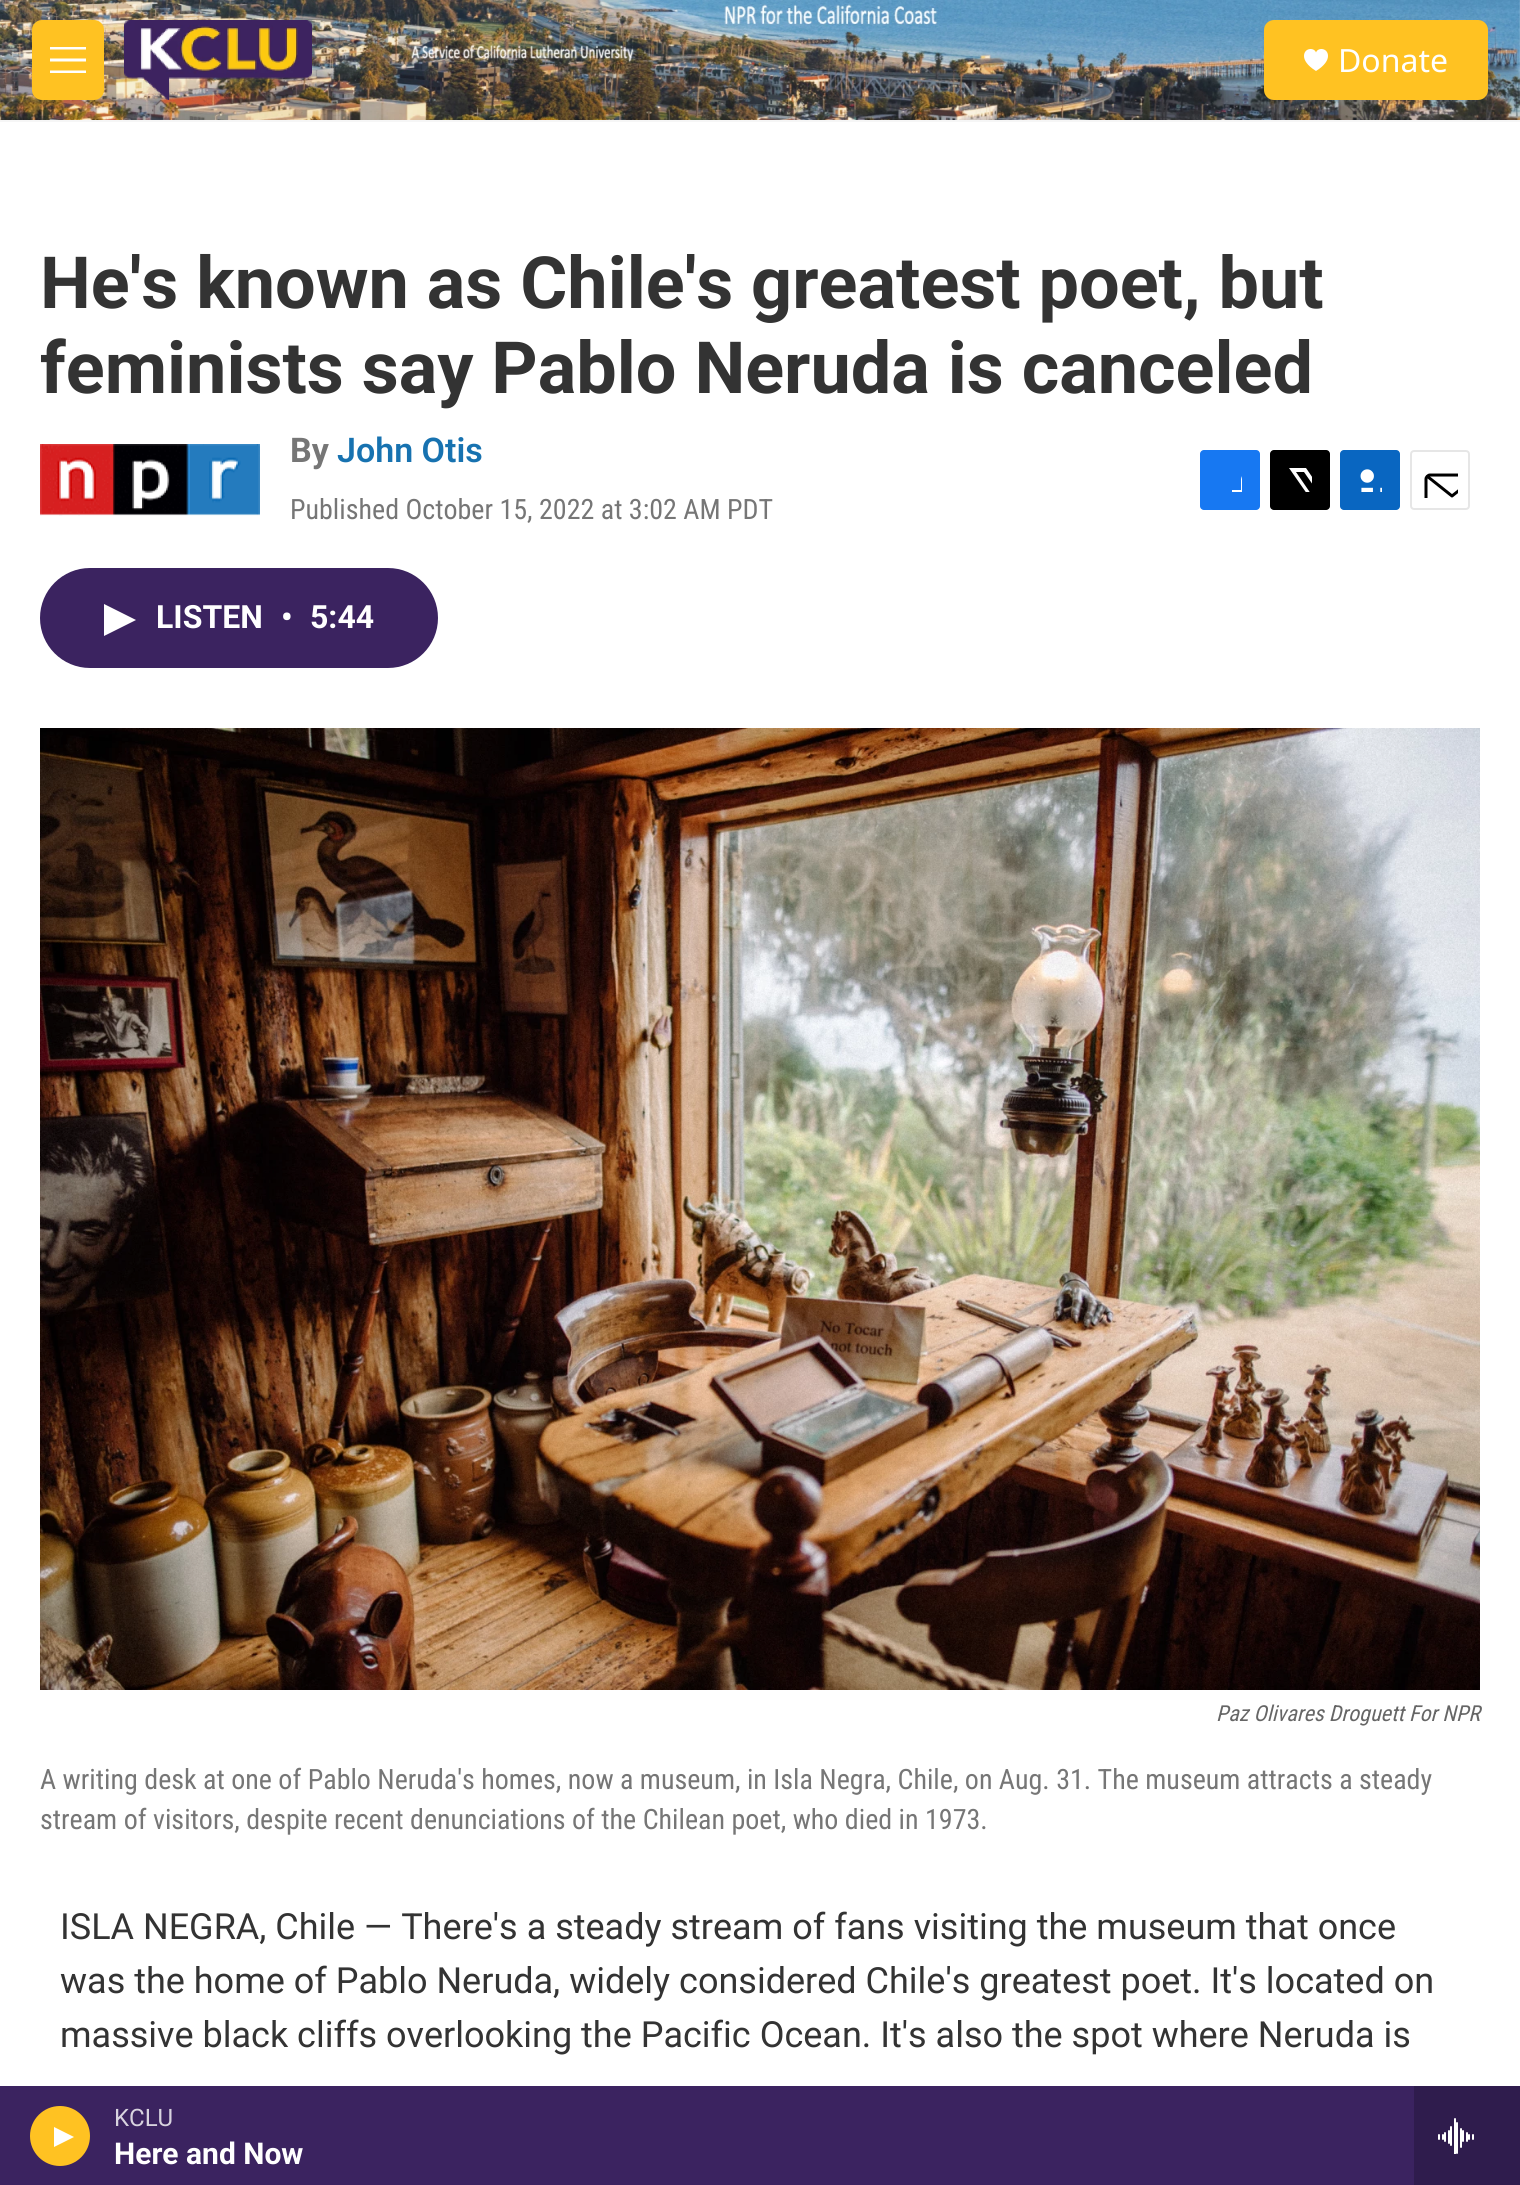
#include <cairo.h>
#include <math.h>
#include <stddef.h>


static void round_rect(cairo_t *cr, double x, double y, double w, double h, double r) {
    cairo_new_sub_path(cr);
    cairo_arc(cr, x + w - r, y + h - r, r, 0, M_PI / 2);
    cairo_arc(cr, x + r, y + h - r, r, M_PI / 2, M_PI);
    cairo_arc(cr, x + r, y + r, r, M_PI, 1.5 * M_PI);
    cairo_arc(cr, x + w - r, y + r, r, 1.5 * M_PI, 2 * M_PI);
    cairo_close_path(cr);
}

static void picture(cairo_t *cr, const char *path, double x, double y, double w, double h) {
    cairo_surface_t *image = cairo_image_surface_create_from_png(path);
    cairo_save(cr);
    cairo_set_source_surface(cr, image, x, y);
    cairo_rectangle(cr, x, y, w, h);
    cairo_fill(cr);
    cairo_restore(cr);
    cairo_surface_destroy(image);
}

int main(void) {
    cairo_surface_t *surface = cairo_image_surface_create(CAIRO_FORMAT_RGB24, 1520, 2185);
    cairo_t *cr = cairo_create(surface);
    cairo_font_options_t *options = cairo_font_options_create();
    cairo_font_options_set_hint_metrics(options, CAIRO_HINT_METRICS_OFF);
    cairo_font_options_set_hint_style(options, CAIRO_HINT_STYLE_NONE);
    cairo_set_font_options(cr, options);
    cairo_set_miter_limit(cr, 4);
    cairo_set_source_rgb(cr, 1, 1, 1);
    cairo_paint(cr);
    cairo_set_source_rgb(cr, 0.961, 0.961, 0.961);
    cairo_rectangle(cr, 0, 120, 1520, 2);
    cairo_fill(cr);
    picture(cr, "img1.png", 0, 0, 1520, 120);
    cairo_set_source_rgb(cr, 1, 0.761, 0.133);
    round_rect(cr, 32, 20, 72, 80, 10);
    cairo_fill(cr);
    cairo_set_source_rgb(cr, 1, 1, 1);
    cairo_set_fill_rule(cr, CAIRO_FILL_RULE_EVEN_ODD);
    cairo_new_path(cr);
    cairo_move_to(cr, 50, 61.5);
    cairo_line_to(cr, 50, 58.5);
    cairo_line_to(cr, 86, 58.5);
    cairo_line_to(cr, 86, 61.5);
    cairo_close_path(cr);
    cairo_move_to(cr, 50, 49.5);
    cairo_line_to(cr, 50, 47);
    cairo_line_to(cr, 86, 47);
    cairo_line_to(cr, 86, 49.5);
    cairo_close_path(cr);
    cairo_move_to(cr, 50, 73);
    cairo_line_to(cr, 50, 70.5);
    cairo_line_to(cr, 86, 70.5);
    cairo_line_to(cr, 86, 73);
    cairo_close_path(cr);
    cairo_fill(cr);
    picture(cr, "img2.png", 124, 20, 188, 80);
    cairo_set_source_rgb(cr, 1, 0.761, 0.133);
    round_rect(cr, 1264, 20, 224, 80, 10);
    cairo_fill(cr);
    picture(cr, "img3.png", 1304, 49, 24, 22);
    cairo_select_font_face(cr, "Noto Sans", CAIRO_FONT_SLANT_NORMAL, CAIRO_FONT_WEIGHT_NORMAL);
    cairo_set_font_size(cr, 32);
    cairo_set_source_rgb(cr, 1, 1, 1);
    cairo_move_to(cr, 1338, 72);
    cairo_show_text(cr, "Donate");
    cairo_set_source_rgb(cr, 0.231, 0.137, 0.376);
    cairo_rectangle(cr, 0, 2086, 1414, 99);
    cairo_fill(cr);
    cairo_set_source_rgb(cr, 1, 0.761, 0.133);
    cairo_arc(cr, 60, 2136, 30, 0, 2 * M_PI);
    cairo_fill(cr);
    cairo_set_source_rgb(cr, 1, 1, 1);
    cairo_set_fill_rule(cr, CAIRO_FILL_RULE_WINDING);
    cairo_new_path(cr);
    cairo_move_to(cr, 54, 2127);
    cairo_line_to(cr, 74, 2137);
    cairo_line_to(cr, 54, 2147);
    cairo_close_path(cr);
    cairo_fill(cr);
    cairo_select_font_face(cr, "Roboto", CAIRO_FONT_SLANT_NORMAL, CAIRO_FONT_WEIGHT_NORMAL);
    cairo_set_font_size(cr, 24);
    cairo_set_source_rgb(cr, 0.847, 0.827, 0.875);
    cairo_move_to(cr, 114, 2126);
    cairo_show_text(cr, "KCLU");
    cairo_select_font_face(cr, "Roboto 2", CAIRO_FONT_SLANT_NORMAL, CAIRO_FONT_WEIGHT_BOLD);
    cairo_set_font_size(cr, 30);
    cairo_set_source_rgb(cr, 1, 1, 1);
    cairo_move_to(cr, 114, 2164);
    cairo_show_text(cr, "Here and Now");
    cairo_set_source_rgb(cr, 0.184, 0.11, 0.302);
    cairo_rectangle(cr, 1414, 2086, 106, 99);
    cairo_fill(cr);
    picture(cr, "img4.png", 1438, 2118, 36, 36);
    cairo_select_font_face(cr, "Roboto", CAIRO_FONT_SLANT_NORMAL, CAIRO_FONT_WEIGHT_BOLD);
    cairo_set_font_size(cr, 72);
    cairo_set_source_rgb(cr, 0.2, 0.2, 0.2);
    cairo_move_to(cr, 40, 308);
    cairo_show_text(cr, "He's known as Chile's greatest poet, but");
    cairo_move_to(cr, 40, 393);
    cairo_show_text(cr, "feminists say Pablo Neruda is canceled");
    picture(cr, "img5.png", 40, 444, 220, 72);
    cairo_set_font_size(cr, 34);
    cairo_set_source_rgb(cr, 0.463, 0.463, 0.463);
    cairo_move_to(cr, 290, 462);
    cairo_show_text(cr, "By");
    cairo_select_font_face(cr, "Roboto SemiBold", CAIRO_FONT_SLANT_NORMAL, CAIRO_FONT_WEIGHT_NORMAL);
    cairo_set_source_rgb(cr, 0.09, 0.447, 0.69);
    cairo_move_to(cr, 337, 462);
    cairo_show_text(cr, "John Otis");
    cairo_select_font_face(cr, "Roboto Condensed", CAIRO_FONT_SLANT_NORMAL, CAIRO_FONT_WEIGHT_NORMAL);
    cairo_set_font_size(cr, 28);
    cairo_set_source_rgb(cr, 0.463, 0.463, 0.463);
    cairo_move_to(cr, 290, 519);
    cairo_show_text(cr, "Published October 15, 2022 at 3:02 AM PDT");
    cairo_set_source_rgb(cr, 0.09, 0.471, 0.949);
    round_rect(cr, 1200, 450, 60, 60, 4);
    cairo_fill(cr);
    cairo_save(cr);
    cairo_rectangle(cr, 1218, 468, 24, 24);
    cairo_clip(cr);
    cairo_set_source_rgb(cr, 1, 1, 1);
    cairo_new_path(cr);
    cairo_move_to(cr, 1251, 510);
    cairo_line_to(cr, 1241, 510);
    cairo_line_to(cr, 1241, 500);
    cairo_line_to(cr, 1232, 500);
    cairo_line_to(cr, 1232, 490);
    cairo_line_to(cr, 1241, 490);
    cairo_line_to(cr, 1241, 479);
    cairo_curve_to(cr, 1243, 470, 1252, 468, 1260, 469);
    cairo_line_to(cr, 1260, 478);
    cairo_curve_to(cr, 1249, 478, 1251, 481, 1251, 490);
    cairo_line_to(cr, 1260, 490);
    cairo_line_to(cr, 1260, 495);
    cairo_line_to(cr, 1259, 500);
    cairo_line_to(cr, 1251, 500);
    cairo_close_path(cr);
    cairo_fill(cr);
    cairo_restore(cr);
    cairo_set_source_rgb(cr, 0, 0, 0);
    round_rect(cr, 1270, 450, 60, 60, 4);
    cairo_fill(cr);
    cairo_save(cr);
    cairo_rectangle(cr, 1288, 468, 24, 24);
    cairo_clip(cr);
    cairo_set_source_rgb(cr, 1, 1, 1);
    cairo_new_path(cr);
    cairo_move_to(cr, 1324, 493);
    cairo_line_to(cr, 1330, 502);
    cairo_curve_to(cr, 1330, 504, 1331, 507, 1329, 508);
    cairo_line_to(cr, 1304, 472);
    cairo_line_to(cr, 1296, 472);
    cairo_line_to(cr, 1322, 510);
    cairo_line_to(cr, 1317, 510);
    cairo_line_to(cr, 1314, 505);
    cairo_line_to(cr, 1310, 510);
    cairo_line_to(cr, 1304, 510);
    cairo_line_to(cr, 1312, 501);
    cairo_line_to(cr, 1289, 468);
    cairo_line_to(cr, 1306, 468);
    cairo_line_to(cr, 1321, 490);
    cairo_line_to(cr, 1330, 480);
    cairo_line_to(cr, 1330, 486);
    cairo_close_path(cr);
    cairo_fill(cr);
    cairo_restore(cr);
    cairo_set_source_rgb(cr, 0.039, 0.4, 0.757);
    round_rect(cr, 1340, 450, 60, 60, 4);
    cairo_fill(cr);
    picture(cr, "img6.png", 1360, 469, 22, 23);
    round_rect(cr, 1411, 451, 58, 58, 3);
    cairo_set_source_rgb(cr, 0.902, 0.902, 0.902);
    cairo_stroke(cr);
    cairo_save(cr);
    cairo_rectangle(cr, 1422, 462, 36, 36);
    cairo_clip(cr);
    cairo_new_path(cr);
    cairo_move_to(cr, 1478, 506);
    cairo_curve_to(cr, 1478, 508, 1476, 509.5, 1474, 509.5);
    cairo_line_to(cr, 1430, 509.5);
    cairo_curve_to(cr, 1428, 509.5, 1426, 508, 1426, 506);
    cairo_line_to(cr, 1426, 479);
    cairo_curve_to(cr, 1426, 477, 1428, 475, 1430, 475);
    cairo_line_to(cr, 1474, 475);
    cairo_curve_to(cr, 1476, 475, 1478, 477, 1478, 479);
    cairo_close_path(cr);
    cairo_move_to(cr, 1476.5, 476.5);
    cairo_line_to(cr, 1452, 496);
    cairo_line_to(cr, 1427.5, 476.5);
    cairo_set_source_rgb(cr, 0, 0, 0);
    cairo_set_line_width(cr, 3);
    cairo_set_line_cap(cr, CAIRO_LINE_CAP_ROUND);
    cairo_set_line_join(cr, CAIRO_LINE_JOIN_ROUND);
    cairo_stroke(cr);
    cairo_restore(cr);
    cairo_set_source_rgb(cr, 0.231, 0.137, 0.376);
    round_rect(cr, 40, 568, 398, 100, 50);
    cairo_fill(cr);
    cairo_set_source_rgb(cr, 1, 1, 1);
    cairo_new_path(cr);
    cairo_move_to(cr, 104, 604);
    cairo_line_to(cr, 136, 620);
    cairo_line_to(cr, 104, 636);
    cairo_close_path(cr);
    cairo_fill(cr);
    cairo_select_font_face(cr, "Roboto 2", CAIRO_FONT_SLANT_NORMAL, CAIRO_FONT_WEIGHT_BOLD);
    cairo_set_font_size(cr, 32);
    cairo_move_to(cr, 156, 628);
    cairo_show_text(cr, "LISTEN");
    cairo_move_to(cr, 281, 628);
    cairo_show_text(cr, "•");
    cairo_move_to(cr, 310, 628);
    cairo_show_text(cr, "5:44");
    picture(cr, "img7.png", 40, 728, 1440, 962);
    cairo_select_font_face(cr, "Roboto Condensed", CAIRO_FONT_SLANT_ITALIC, CAIRO_FONT_WEIGHT_NORMAL);
    cairo_set_font_size(cr, 22);
    cairo_set_source_rgb(cr, 0.4, 0.4, 0.4);
    cairo_move_to(cr, 1216, 1721);
    cairo_show_text(cr, "Paz Olivares Droguett For NPR");
    cairo_select_font_face(cr, "Roboto Condensed", CAIRO_FONT_SLANT_NORMAL, CAIRO_FONT_WEIGHT_NORMAL);
    cairo_set_font_size(cr, 28);
    cairo_set_source_rgb(cr, 0.463, 0.463, 0.463);
    cairo_move_to(cr, 40, 1789);
    cairo_show_text(cr, "A writing desk at one of Pablo Neruda's homes, now a museum, in Isla Negra, Chile, on Aug. 31. The museum attracts a steady");
    cairo_move_to(cr, 40, 1829);
    cairo_show_text(cr, "stream of visitors, despite recent denunciations of the Chilean poet, who died in 1973.");
    cairo_select_font_face(cr, "Roboto", CAIRO_FONT_SLANT_NORMAL, CAIRO_FONT_WEIGHT_NORMAL);
    cairo_set_font_size(cr, 36);
    cairo_set_source_rgb(cr, 0.2, 0.2, 0.2);
    cairo_move_to(cr, 60, 1939);
    cairo_show_text(cr, "ISLA NEGRA, Chile — There's a steady stream of fans visiting the museum that once");
    cairo_move_to(cr, 60, 1993);
    cairo_show_text(cr, "was the home of Pablo Neruda, widely considered Chile's greatest poet. It's located on");
    cairo_move_to(cr, 60, 2047);
    cairo_show_text(cr, "massive black cliffs overlooking the Pacific Ocean. It's also the spot where Neruda is");
    cairo_surface_write_to_png(surface, "page.png");
    cairo_font_options_destroy(options);
    cairo_destroy(cr);
    cairo_surface_destroy(surface);
    return 0;
}
